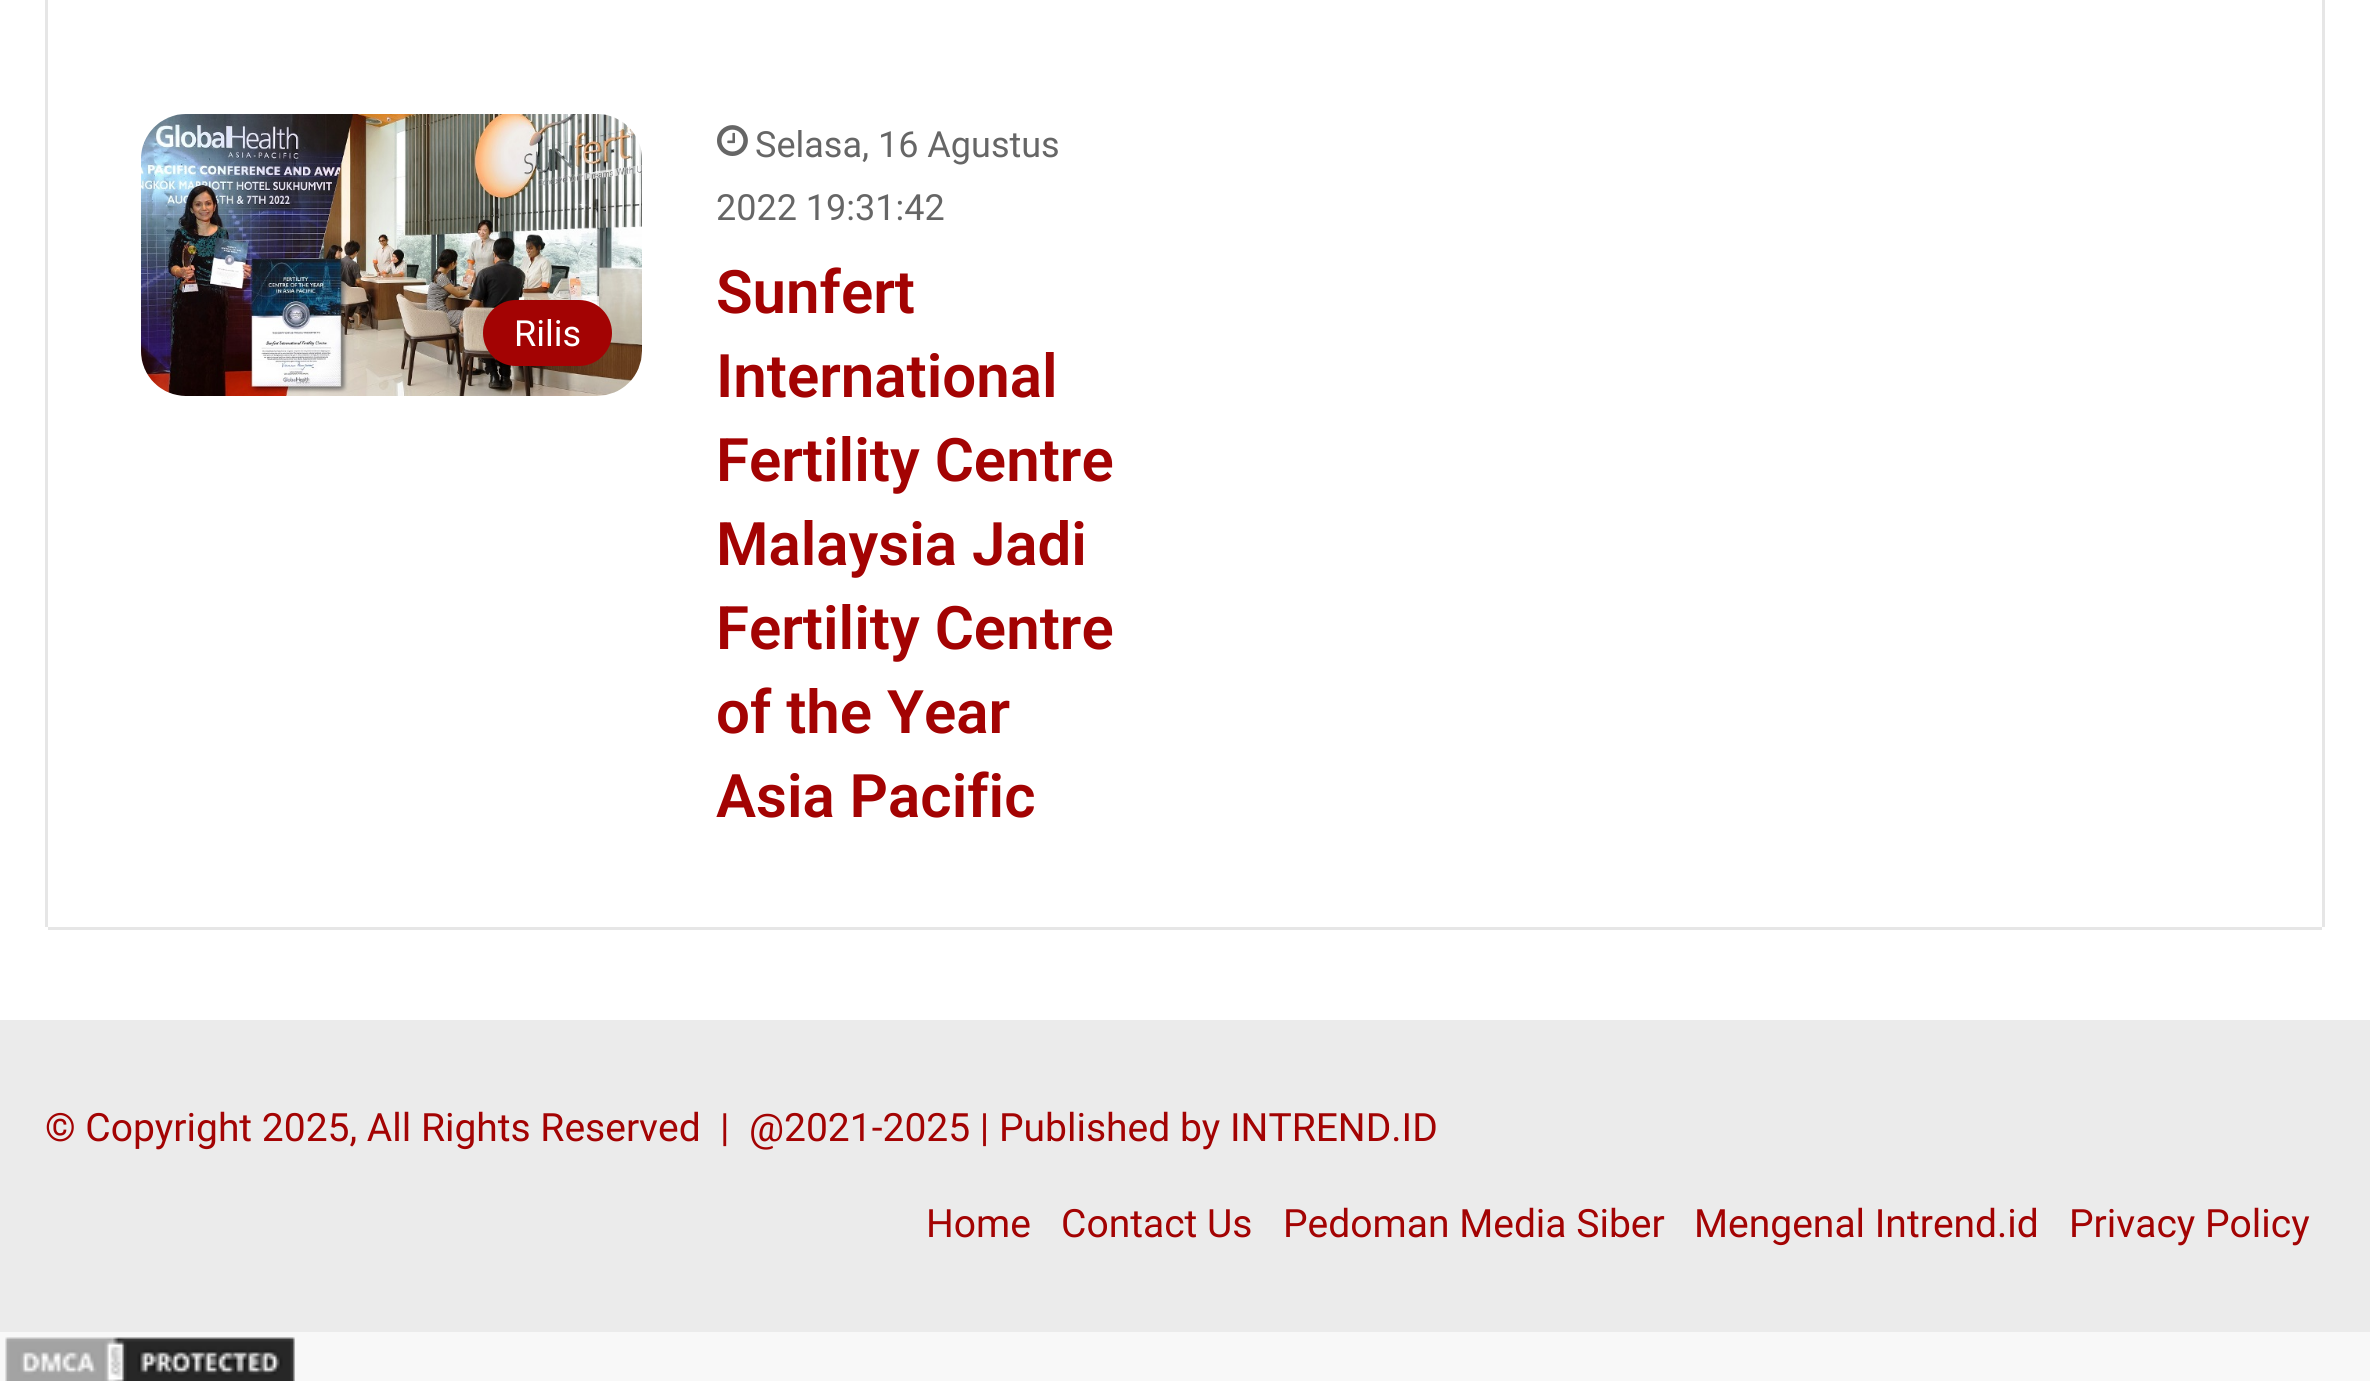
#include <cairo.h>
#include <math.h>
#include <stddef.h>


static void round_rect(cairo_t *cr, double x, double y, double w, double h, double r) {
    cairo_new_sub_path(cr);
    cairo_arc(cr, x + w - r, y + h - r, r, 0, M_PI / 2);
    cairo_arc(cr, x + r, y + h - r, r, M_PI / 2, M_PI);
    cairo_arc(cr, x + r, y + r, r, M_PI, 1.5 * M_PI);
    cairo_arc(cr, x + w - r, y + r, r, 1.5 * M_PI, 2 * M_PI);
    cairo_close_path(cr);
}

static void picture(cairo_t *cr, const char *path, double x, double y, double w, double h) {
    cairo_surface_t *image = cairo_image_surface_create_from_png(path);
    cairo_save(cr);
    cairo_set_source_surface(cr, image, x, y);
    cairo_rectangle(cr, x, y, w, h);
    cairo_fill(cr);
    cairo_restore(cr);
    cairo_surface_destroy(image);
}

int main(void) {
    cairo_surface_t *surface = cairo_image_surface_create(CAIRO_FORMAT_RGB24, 2370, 1381);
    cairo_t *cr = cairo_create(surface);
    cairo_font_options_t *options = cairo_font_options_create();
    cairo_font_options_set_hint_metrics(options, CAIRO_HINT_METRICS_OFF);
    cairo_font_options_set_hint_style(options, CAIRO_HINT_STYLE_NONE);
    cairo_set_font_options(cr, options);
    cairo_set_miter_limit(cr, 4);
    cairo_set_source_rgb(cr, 0.969, 0.969, 0.969);
    cairo_paint(cr);
    cairo_set_source_rgb(cr, 1, 1, 1);
    cairo_rectangle(cr, 0, 0, 2370, 1020);
    cairo_fill(cr);
    cairo_set_source_rgb(cr, 0.902, 0.902, 0.902);
    cairo_rectangle(cr, 2322, 0, 3, 927);
    cairo_fill(cr);
    cairo_rectangle(cr, 48, 927, 2274, 3);
    cairo_fill(cr);
    cairo_rectangle(cr, 45, 0, 3, 927);
    cairo_fill(cr);
    picture(cr, "img1.png", 141, 114, 501, 282);
    cairo_set_source_rgb(cr, 0.639, 0.012, 0.012);
    round_rect(cr, 483, 300, 129, 66, 33);
    cairo_fill(cr);
    cairo_select_font_face(cr, "Roboto", CAIRO_FONT_SLANT_NORMAL, CAIRO_FONT_WEIGHT_NORMAL);
    cairo_set_font_size(cr, 36);
    cairo_set_source_rgb(cr, 1, 1, 1);
    cairo_move_to(cr, 514, 346);
    cairo_show_text(cr, "Rilis");
    picture(cr, "img2.png", 717, 125, 31, 31);
    cairo_set_source_rgb(cr, 0.4, 0.4, 0.4);
    cairo_move_to(cr, 755, 157);
    cairo_show_text(cr, "Selasa, 16 Agustus");
    cairo_move_to(cr, 716, 220);
    cairo_show_text(cr, "2022 19:31:42");
    cairo_select_font_face(cr, "Roboto SemiBold", CAIRO_FONT_SLANT_NORMAL, CAIRO_FONT_WEIGHT_NORMAL);
    cairo_set_font_size(cr, 60);
    cairo_set_source_rgb(cr, 0.639, 0.012, 0.012);
    cairo_move_to(cr, 716, 313);
    cairo_show_text(cr, "Sunfert");
    cairo_move_to(cr, 716, 397);
    cairo_show_text(cr, "International");
    cairo_move_to(cr, 716, 481);
    cairo_show_text(cr, "Fertility Centre");
    cairo_move_to(cr, 716, 565);
    cairo_show_text(cr, "Malaysia Jadi");
    cairo_move_to(cr, 716, 649);
    cairo_show_text(cr, "Fertility Centre");
    cairo_move_to(cr, 716, 733);
    cairo_show_text(cr, "of the Year");
    cairo_move_to(cr, 716, 817);
    cairo_show_text(cr, "Asia Pacific");
    cairo_set_source_rgb(cr, 0.918, 0.918, 0.918);
    cairo_rectangle(cr, 0, 1020, 2370, 312);
    cairo_fill(cr);
    cairo_select_font_face(cr, "Roboto", CAIRO_FONT_SLANT_NORMAL, CAIRO_FONT_WEIGHT_NORMAL);
    cairo_set_font_size(cr, 39);
    cairo_set_source_rgb(cr, 0.639, 0.012, 0.012);
    cairo_move_to(cr, 45, 1141);
    cairo_show_text(cr, "© Copyright 2025, All Rights Reserved  |");
    cairo_move_to(cr, 749, 1141);
    cairo_show_text(cr, "@2021-2025 | Published by INTREND.ID");
    cairo_move_to(cr, 926, 1237);
    cairo_show_text(cr, "Home");
    cairo_move_to(cr, 1061, 1237);
    cairo_show_text(cr, "Contact Us");
    cairo_move_to(cr, 1283, 1237);
    cairo_show_text(cr, "Pedoman Media Siber");
    cairo_move_to(cr, 1694, 1237);
    cairo_show_text(cr, "Mengenal Intrend.id");
    cairo_move_to(cr, 2069, 1237);
    cairo_show_text(cr, "Privacy Policy");
    picture(cr, "img3.png", 5, 1337, 290, 44);
    cairo_surface_write_to_png(surface, "page.png");
    cairo_font_options_destroy(options);
    cairo_destroy(cr);
    cairo_surface_destroy(surface);
    return 0;
}
